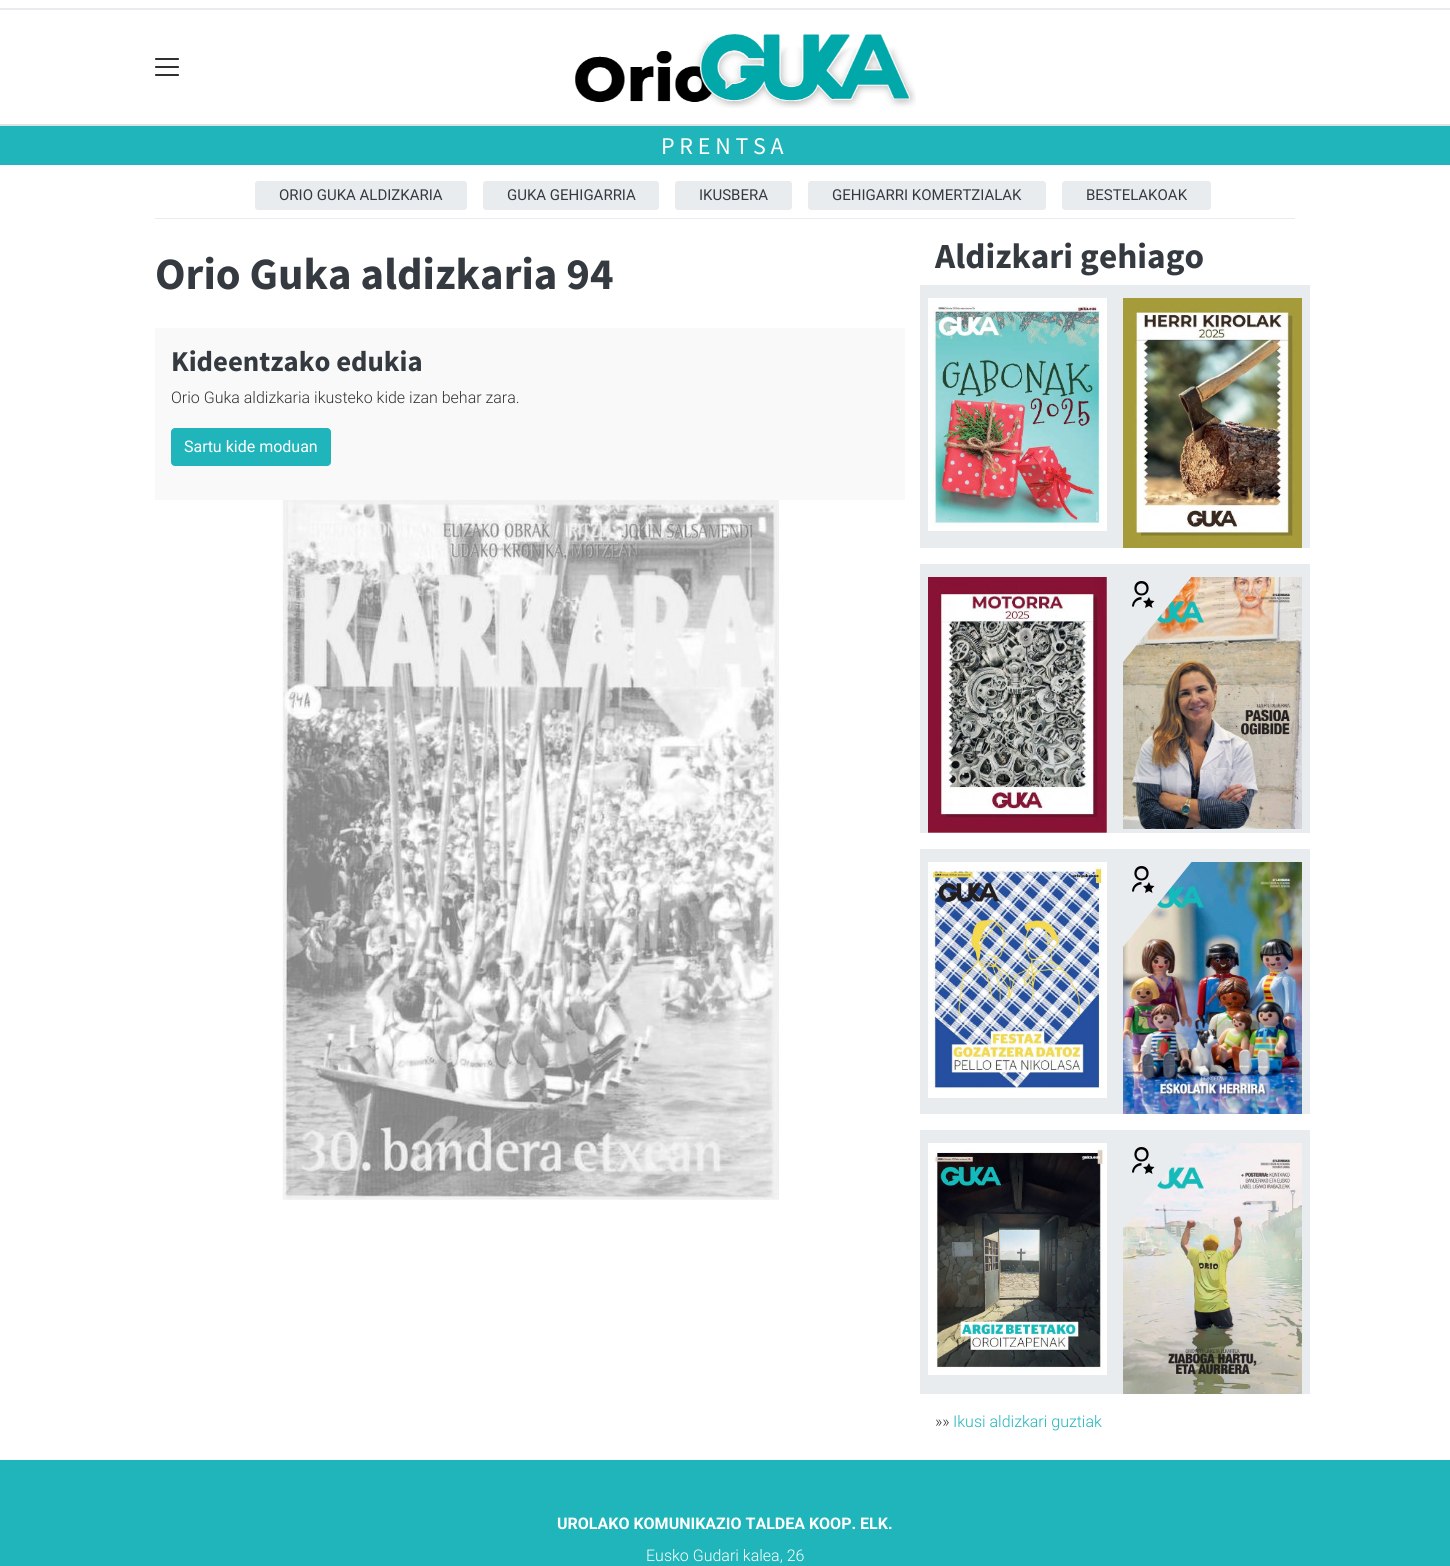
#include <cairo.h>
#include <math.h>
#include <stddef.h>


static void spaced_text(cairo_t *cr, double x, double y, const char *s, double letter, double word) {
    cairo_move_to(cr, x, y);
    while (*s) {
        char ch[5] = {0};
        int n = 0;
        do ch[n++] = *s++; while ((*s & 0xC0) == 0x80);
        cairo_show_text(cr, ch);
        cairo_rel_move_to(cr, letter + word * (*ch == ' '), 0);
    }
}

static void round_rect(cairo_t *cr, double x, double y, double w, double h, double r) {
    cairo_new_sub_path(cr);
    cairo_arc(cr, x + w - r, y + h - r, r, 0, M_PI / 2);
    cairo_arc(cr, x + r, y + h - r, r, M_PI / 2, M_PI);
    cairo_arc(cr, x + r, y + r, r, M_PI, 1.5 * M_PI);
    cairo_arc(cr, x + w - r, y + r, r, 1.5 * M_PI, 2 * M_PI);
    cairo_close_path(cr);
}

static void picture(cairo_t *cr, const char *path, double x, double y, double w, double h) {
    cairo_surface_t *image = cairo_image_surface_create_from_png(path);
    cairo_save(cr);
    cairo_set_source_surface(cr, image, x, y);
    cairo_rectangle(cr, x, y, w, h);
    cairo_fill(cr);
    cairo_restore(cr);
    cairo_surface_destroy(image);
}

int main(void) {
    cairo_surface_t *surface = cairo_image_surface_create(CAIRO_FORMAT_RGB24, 1450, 1566);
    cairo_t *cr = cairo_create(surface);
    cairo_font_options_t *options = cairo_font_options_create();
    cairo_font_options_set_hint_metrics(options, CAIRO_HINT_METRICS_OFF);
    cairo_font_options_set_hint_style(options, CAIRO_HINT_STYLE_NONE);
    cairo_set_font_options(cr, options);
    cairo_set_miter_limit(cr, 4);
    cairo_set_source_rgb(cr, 1, 1, 1);
    cairo_paint(cr);
    cairo_set_source_rgb(cr, 0.914, 0.925, 0.937);
    cairo_rectangle(cr, 0, 8, 1450, 2);
    cairo_fill(cr);
    picture(cr, "img1.png", 155, 58, 24, 18);
    picture(cr, "img2.png", 575, 34, 341, 74);
    cairo_set_source_rgb(cr, 0.871, 0.886, 0.902);
    cairo_rectangle(cr, 0, 124, 1450, 2);
    cairo_fill(cr);
    cairo_set_source_rgb(cr, 0.125, 0.71, 0.729);
    cairo_rectangle(cr, 0, 126, 1450, 39);
    cairo_fill(cr);
    cairo_select_font_face(cr, "Source Sans Pro", CAIRO_FONT_SLANT_NORMAL, CAIRO_FONT_WEIGHT_NORMAL);
    cairo_set_font_size(cr, 24);
    cairo_set_source_rgb(cr, 1, 1, 1);
    spaced_text(cr, 661, 154, "PRENTSA", 4.75, 0);
    cairo_set_source_rgb(cr, 0.914, 0.925, 0.937);
    cairo_rectangle(cr, 155, 218, 1140, 1);
    cairo_fill(cr);
    round_rect(cr, 255, 181, 212, 29, 3);
    cairo_fill(cr);
    cairo_select_font_face(cr, "Roboto", CAIRO_FONT_SLANT_NORMAL, CAIRO_FONT_WEIGHT_NORMAL);
    cairo_set_font_size(cr, 15);
    cairo_set_source_rgb(cr, 0.204, 0.227, 0.251);
    cairo_move_to(cr, 279, 200);
    cairo_show_text(cr, "ORIO GUKA ALDIZKARIA");
    cairo_set_source_rgb(cr, 0.914, 0.925, 0.937);
    round_rect(cr, 483, 181, 176, 29, 3);
    cairo_fill(cr);
    cairo_set_source_rgb(cr, 0.204, 0.227, 0.251);
    cairo_move_to(cr, 507, 200);
    cairo_show_text(cr, "GUKA GEHIGARRIA");
    cairo_set_source_rgb(cr, 0.914, 0.925, 0.937);
    round_rect(cr, 675, 181, 117, 29, 3);
    cairo_fill(cr);
    cairo_set_source_rgb(cr, 0.204, 0.227, 0.251);
    cairo_move_to(cr, 699, 200);
    cairo_show_text(cr, "IKUSBERA");
    cairo_set_source_rgb(cr, 0.914, 0.925, 0.937);
    round_rect(cr, 808, 181, 238, 29, 3);
    cairo_fill(cr);
    cairo_set_source_rgb(cr, 0.204, 0.227, 0.251);
    cairo_move_to(cr, 832, 200);
    cairo_show_text(cr, "GEHIGARRI KOMERTZIALAK");
    cairo_set_source_rgb(cr, 0.914, 0.925, 0.937);
    round_rect(cr, 1062, 181, 149, 29, 3);
    cairo_fill(cr);
    cairo_set_source_rgb(cr, 0.204, 0.227, 0.251);
    cairo_move_to(cr, 1086, 200);
    cairo_show_text(cr, "BESTELAKOAK");
    cairo_select_font_face(cr, "Source Sans Pro", CAIRO_FONT_SLANT_NORMAL, CAIRO_FONT_WEIGHT_BOLD);
    cairo_set_font_size(cr, 44.75);
    cairo_move_to(cr, 155, 289);
    cairo_show_text(cr, "Orio Guka aldizkaria 94");
    cairo_set_source_rgb(cr, 0.973, 0.976, 0.98);
    cairo_rectangle(cr, 155, 328, 750, 172);
    cairo_fill(cr);
    cairo_set_font_size(cr, 28.75);
    cairo_set_source_rgb(cr, 0.204, 0.227, 0.251);
    cairo_move_to(cr, 171, 371);
    cairo_show_text(cr, "Kideentzako edukia");
    cairo_select_font_face(cr, "Roboto Light", CAIRO_FONT_SLANT_NORMAL, CAIRO_FONT_WEIGHT_NORMAL);
    cairo_set_font_size(cr, 16);
    cairo_set_source_rgb(cr, 0.2, 0.2, 0.2);
    cairo_move_to(cr, 171, 403);
    cairo_show_text(cr, "Orio Guka aldizkaria ikusteko kide izan behar zara.");
    cairo_set_source_rgb(cr, 0.125, 0.71, 0.729);
    round_rect(cr, 171.5, 428.5, 159, 37, 3.5);
    cairo_fill_preserve(cr);
    cairo_set_line_width(cr, 1);
    cairo_stroke(cr);
    cairo_select_font_face(cr, "Roboto", CAIRO_FONT_SLANT_NORMAL, CAIRO_FONT_WEIGHT_NORMAL);
    cairo_set_source_rgb(cr, 1, 1, 1);
    cairo_move_to(cr, 184, 452);
    cairo_show_text(cr, "Sartu kide moduan");
    picture(cr, "img3.png", 282, 500, 497, 700);
    cairo_select_font_face(cr, "Source Sans Pro", CAIRO_FONT_SLANT_NORMAL, CAIRO_FONT_WEIGHT_BOLD);
    cairo_set_font_size(cr, 35.25);
    cairo_set_source_rgb(cr, 0.204, 0.227, 0.251);
    cairo_move_to(cr, 935, 268);
    cairo_show_text(cr, "Aldizkari gehiago");
    cairo_set_source_rgb(cr, 0.914, 0.925, 0.937);
    cairo_rectangle(cr, 920, 285, 390, 263);
    cairo_fill(cr);
    picture(cr, "img4.png", 928, 298, 179, 233);
    picture(cr, "img5.png", 1123, 298, 179, 250);
    cairo_rectangle(cr, 920, 564, 390, 269);
    cairo_fill(cr);
    picture(cr, "img6.png", 928, 577, 179, 256);
    picture(cr, "img7.png", 1123, 577, 179, 252);
    cairo_new_path(cr);
    cairo_move_to(cr, 1115, 564);
    cairo_line_to(cr, 1202, 564);
    cairo_line_to(cr, 1115, 672);
    cairo_close_path(cr);
    cairo_fill(cr);
    cairo_set_source_rgb(cr, 0, 0, 0);
    cairo_new_path(cr);
    cairo_move_to(cr, 1141.5, 597);
    cairo_line_to(cr, 1141.5, 599.5);
    cairo_curve_to(cr, 1137.5, 599.5, 1134, 602.5, 1134, 606.5);
    cairo_line_to(cr, 1132, 606.5);
    cairo_curve_to(cr, 1132, 601.5, 1136, 597, 1141.5, 597);
    cairo_close_path(cr);
    cairo_move_to(cr, 1141.5, 595.5);
    cairo_curve_to(cr, 1132, 595.5, 1132, 581, 1141.5, 581);
    cairo_curve_to(cr, 1151, 581, 1151, 595.5, 1141.5, 595.5);
    cairo_close_path(cr);
    cairo_move_to(cr, 1141.5, 593.5);
    cairo_curve_to(cr, 1148, 593.5, 1148, 583.5, 1141.5, 583.5);
    cairo_curve_to(cr, 1135, 583.5, 1135, 593.5, 1141.5, 593.5);
    cairo_close_path(cr);
    cairo_move_to(cr, 1149, 606);
    cairo_line_to(cr, 1145, 608);
    cairo_line_to(cr, 1146, 604);
    cairo_line_to(cr, 1143, 601);
    cairo_line_to(cr, 1147, 600.5);
    cairo_line_to(cr, 1149, 597);
    cairo_line_to(cr, 1150.5, 600.5);
    cairo_line_to(cr, 1154.5, 601);
    cairo_line_to(cr, 1151.5, 604);
    cairo_line_to(cr, 1152.5, 608);
    cairo_close_path(cr);
    cairo_fill(cr);
    cairo_set_source_rgb(cr, 0.914, 0.925, 0.937);
    cairo_rectangle(cr, 920, 849, 390, 265);
    cairo_fill(cr);
    picture(cr, "img8.png", 928, 862, 179, 236);
    picture(cr, "img9.png", 1123, 862, 179, 252);
    cairo_new_path(cr);
    cairo_move_to(cr, 1115, 849);
    cairo_line_to(cr, 1202, 849);
    cairo_line_to(cr, 1115, 957);
    cairo_close_path(cr);
    cairo_fill(cr);
    cairo_set_source_rgb(cr, 0, 0, 0);
    cairo_new_path(cr);
    cairo_move_to(cr, 1141.5, 882);
    cairo_line_to(cr, 1141.5, 884.5);
    cairo_curve_to(cr, 1137.5, 884.5, 1134, 887.5, 1134, 891.5);
    cairo_line_to(cr, 1132, 891.5);
    cairo_curve_to(cr, 1132, 886.5, 1136, 882, 1141.5, 882);
    cairo_close_path(cr);
    cairo_move_to(cr, 1141.5, 880.5);
    cairo_curve_to(cr, 1132, 880.5, 1132, 866, 1141.5, 866);
    cairo_curve_to(cr, 1151, 866, 1151, 880.5, 1141.5, 880.5);
    cairo_close_path(cr);
    cairo_move_to(cr, 1141.5, 878.5);
    cairo_curve_to(cr, 1148, 878.5, 1148, 868.5, 1141.5, 868.5);
    cairo_curve_to(cr, 1135, 868.5, 1135, 878.5, 1141.5, 878.5);
    cairo_close_path(cr);
    cairo_move_to(cr, 1149, 891);
    cairo_line_to(cr, 1145, 893);
    cairo_line_to(cr, 1146, 889);
    cairo_line_to(cr, 1143, 886);
    cairo_line_to(cr, 1147, 885.5);
    cairo_line_to(cr, 1149, 882);
    cairo_line_to(cr, 1150.5, 885.5);
    cairo_line_to(cr, 1154.5, 886);
    cairo_line_to(cr, 1151.5, 889);
    cairo_line_to(cr, 1152.5, 893);
    cairo_close_path(cr);
    cairo_fill(cr);
    cairo_set_source_rgb(cr, 0.914, 0.925, 0.937);
    cairo_rectangle(cr, 920, 1130, 390, 264);
    cairo_fill(cr);
    picture(cr, "img10.png", 928, 1143, 179, 232);
    picture(cr, "img11.png", 1123, 1143, 179, 251);
    cairo_new_path(cr);
    cairo_move_to(cr, 1115, 1130);
    cairo_line_to(cr, 1202, 1130);
    cairo_line_to(cr, 1115, 1238);
    cairo_close_path(cr);
    cairo_fill(cr);
    cairo_set_source_rgb(cr, 0, 0, 0);
    cairo_new_path(cr);
    cairo_move_to(cr, 1141.5, 1163);
    cairo_line_to(cr, 1141.5, 1165.5);
    cairo_curve_to(cr, 1137.5, 1165.5, 1134, 1168.5, 1134, 1172.5);
    cairo_line_to(cr, 1132, 1172.5);
    cairo_curve_to(cr, 1132, 1167.5, 1136, 1163, 1141.5, 1163);
    cairo_close_path(cr);
    cairo_move_to(cr, 1141.5, 1161.5);
    cairo_curve_to(cr, 1132, 1161.5, 1132, 1147, 1141.5, 1147);
    cairo_curve_to(cr, 1151, 1147, 1151, 1161.5, 1141.5, 1161.5);
    cairo_close_path(cr);
    cairo_move_to(cr, 1141.5, 1159.5);
    cairo_curve_to(cr, 1148, 1159.5, 1148, 1149.5, 1141.5, 1149.5);
    cairo_curve_to(cr, 1135, 1149.5, 1135, 1159.5, 1141.5, 1159.5);
    cairo_close_path(cr);
    cairo_move_to(cr, 1149, 1172);
    cairo_line_to(cr, 1145, 1174);
    cairo_line_to(cr, 1146, 1170);
    cairo_line_to(cr, 1143, 1167);
    cairo_line_to(cr, 1147, 1166.5);
    cairo_line_to(cr, 1149, 1163);
    cairo_line_to(cr, 1150.5, 1166.5);
    cairo_line_to(cr, 1154.5, 1167);
    cairo_line_to(cr, 1151.5, 1170);
    cairo_line_to(cr, 1152.5, 1174);
    cairo_close_path(cr);
    cairo_fill(cr);
    cairo_select_font_face(cr, "Roboto Light", CAIRO_FONT_SLANT_NORMAL, CAIRO_FONT_WEIGHT_NORMAL);
    cairo_set_font_size(cr, 16);
    cairo_set_source_rgb(cr, 0.2, 0.2, 0.2);
    cairo_move_to(cr, 935, 1427);
    cairo_show_text(cr, "»»");
    cairo_set_source_rgb(cr, 0.125, 0.71, 0.729);
    cairo_move_to(cr, 953, 1427);
    cairo_show_text(cr, "Ikusi aldizkari guztiak");
    cairo_rectangle(cr, 0, 1460, 1450, 106);
    cairo_fill(cr);
    cairo_select_font_face(cr, "Roboto", CAIRO_FONT_SLANT_NORMAL, CAIRO_FONT_WEIGHT_BOLD);
    cairo_set_source_rgb(cr, 1, 1, 1);
    cairo_move_to(cr, 557, 1529);
    cairo_show_text(cr, "UROLAKO KOMUNIKAZIO TALDEA KOOP. ELK.");
    cairo_select_font_face(cr, "Roboto Light", CAIRO_FONT_SLANT_NORMAL, CAIRO_FONT_WEIGHT_NORMAL);
    cairo_move_to(cr, 646, 1561);
    cairo_show_text(cr, "Eusko Gudari kalea, 26");
    cairo_surface_write_to_png(surface, "page.png");
    cairo_font_options_destroy(options);
    cairo_destroy(cr);
    cairo_surface_destroy(surface);
    return 0;
}
